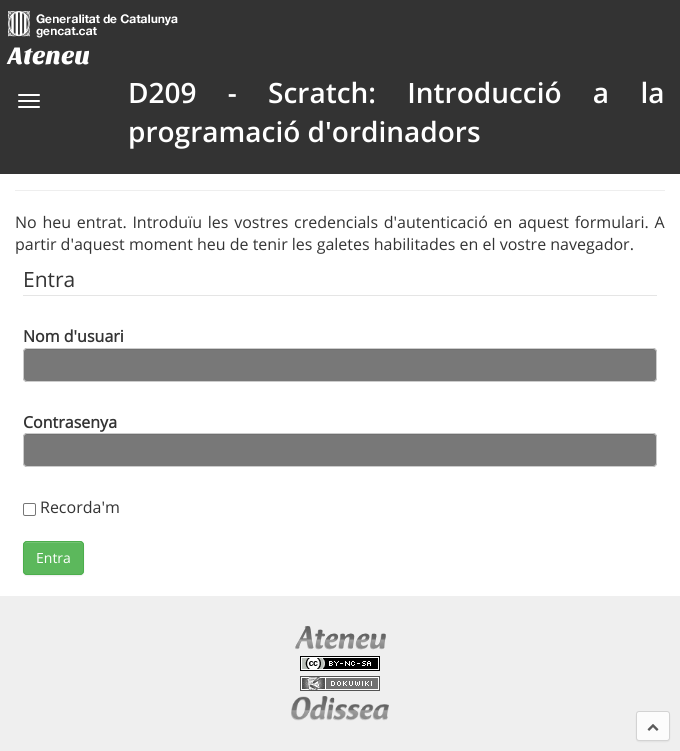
#include <cairo.h>
#include <math.h>
#include <stddef.h>


static void spaced_text(cairo_t *cr, double x, double y, const char *s, double letter, double word) {
    cairo_move_to(cr, x, y);
    while (*s) {
        char ch[5] = {0};
        int n = 0;
        do ch[n++] = *s++; while ((*s & 0xC0) == 0x80);
        cairo_show_text(cr, ch);
        cairo_rel_move_to(cr, letter + word * (*ch == ' '), 0);
    }
}

static void round_rect(cairo_t *cr, double x, double y, double w, double h, double r) {
    cairo_new_sub_path(cr);
    cairo_arc(cr, x + w - r, y + h - r, r, 0, M_PI / 2);
    cairo_arc(cr, x + r, y + h - r, r, M_PI / 2, M_PI);
    cairo_arc(cr, x + r, y + r, r, M_PI, 1.5 * M_PI);
    cairo_arc(cr, x + w - r, y + r, r, 1.5 * M_PI, 2 * M_PI);
    cairo_close_path(cr);
}

static void shadow(cairo_t *cr, double x, double y, double w, double h, double r, double blur, double alpha) {
    cairo_push_group_with_content(cr, CAIRO_CONTENT_ALPHA);
    cairo_set_operator(cr, CAIRO_OPERATOR_SOURCE);
    for (int i = 15; i >= -15 && fmin(w, h) + blur * i / 3 > 0; i -= 2) {
        double e = blur * i / 6;
        cairo_set_source_rgba(cr, 0, 0, 0, alpha * erfc((i - 1) / 8.5) / 2);
        round_rect(cr, x - e, y - e, w + 2 * e, h + 2 * e, fmax(0, fmin(r + e + blur * .6, fmin(w, h) / 2 + e)));
        cairo_fill(cr);
    }
    cairo_pattern_t *soft = cairo_pop_group(cr);
    cairo_mask(cr, soft);
    cairo_pattern_destroy(soft);
}

static void picture(cairo_t *cr, const char *path, double x, double y, double w, double h) {
    cairo_surface_t *image = cairo_image_surface_create_from_png(path);
    cairo_save(cr);
    cairo_set_source_surface(cr, image, x, y);
    cairo_rectangle(cr, x, y, w, h);
    cairo_fill(cr);
    cairo_restore(cr);
    cairo_surface_destroy(image);
}

int main(void) {
    cairo_surface_t *surface = cairo_image_surface_create(CAIRO_FORMAT_RGB24, 680, 751);
    cairo_t *cr = cairo_create(surface);
    cairo_font_options_t *options = cairo_font_options_create();
    cairo_font_options_set_hint_metrics(options, CAIRO_HINT_METRICS_OFF);
    cairo_font_options_set_hint_style(options, CAIRO_HINT_STYLE_NONE);
    cairo_set_font_options(cr, options);
    cairo_set_miter_limit(cr, 4);
    cairo_set_source_rgb(cr, 1, 1, 1);
    cairo_paint(cr);
    cairo_set_source_rgb(cr, 0.2, 0.2, 0.2);
    cairo_rectangle(cr, 0, 0, 680, 174);
    cairo_fill(cr);
    picture(cr, "img1.png", 8, 11, 170, 27);
    cairo_select_font_face(cr, "Sansita One", CAIRO_FONT_SLANT_NORMAL, CAIRO_FONT_WEIGHT_NORMAL);
    cairo_set_font_size(cr, 25);
    cairo_set_source_rgb(cr, 1, 1, 1);
    cairo_move_to(cr, 8, 64);
    cairo_show_text(cr, "Ateneu");
    round_rect(cr, 18, 94, 22, 2, 1);
    cairo_fill(cr);
    round_rect(cr, 18, 100, 22, 2, 1);
    cairo_fill(cr);
    round_rect(cr, 18, 106, 22, 2, 1);
    cairo_fill(cr);
    cairo_select_font_face(cr, "Open Sans SemiBold", CAIRO_FONT_SLANT_NORMAL, CAIRO_FONT_WEIGHT_NORMAL);
    cairo_set_font_size(cr, 28);
    spaced_text(cr, 128, 103, "D209 - Scratch: Introducció a la", 0, 24);
    cairo_move_to(cr, 128, 142);
    cairo_show_text(cr, "programació d'ordinadors");
    cairo_set_source_rgb(cr, 0.933, 0.933, 0.933);
    cairo_rectangle(cr, 15, 190, 650, 1);
    cairo_fill(cr);
    cairo_select_font_face(cr, "Open Sans", CAIRO_FONT_SLANT_NORMAL, CAIRO_FONT_WEIGHT_NORMAL);
    cairo_set_font_size(cr, 16);
    cairo_set_source_rgb(cr, 0.2, 0.2, 0.2);
    spaced_text(cr, 15, 228, "No heu entrat. Introduïu les vostres credencials d'autenticació en aquest formulari. A", 0, 1.6);
    cairo_move_to(cr, 15, 250);
    cairo_show_text(cr, "partir d'aquest moment heu de tenir les galetes habilitades en el vostre navegador.");
    cairo_set_source_rgb(cr, 0.898, 0.898, 0.898);
    cairo_rectangle(cr, 23, 295, 634, 1);
    cairo_fill(cr);
    cairo_set_font_size(cr, 21);
    cairo_set_source_rgb(cr, 0.2, 0.2, 0.2);
    cairo_move_to(cr, 23, 287);
    cairo_show_text(cr, "Entra");
    cairo_select_font_face(cr, "Open Sans", CAIRO_FONT_SLANT_NORMAL, CAIRO_FONT_WEIGHT_BOLD);
    cairo_set_font_size(cr, 16);
    cairo_move_to(cr, 23, 342);
    cairo_show_text(cr, "Nom d'usuari");
    cairo_set_source_rgb(cr, 0.471, 0.471, 0.471);
    round_rect(cr, 23, 348, 634, 34, 4);
    cairo_fill(cr);
    cairo_set_source_rgb(cr, 0.435, 0.435, 0.435);
    cairo_new_path(cr);
    cairo_move_to(cr, 27, 350);
    cairo_line_to(cr, 653, 350);
    cairo_curve_to(cr, 655, 350, 656, 351, 656, 353);
    cairo_line_to(cr, 656, 352);
    cairo_curve_to(cr, 656, 350, 655, 349, 653, 349);
    cairo_line_to(cr, 27, 349);
    cairo_curve_to(cr, 25, 349, 24, 350, 24, 352);
    cairo_line_to(cr, 24, 353);
    cairo_curve_to(cr, 24, 351, 25, 350, 27, 350);
    cairo_close_path(cr);
    cairo_fill(cr);
    round_rect(cr, 23.5, 348.5, 633, 33, 3.5);
    cairo_set_source_rgb(cr, 0.8, 0.8, 0.8);
    cairo_set_line_width(cr, 1);
    cairo_stroke(cr);
    cairo_set_source_rgb(cr, 0.2, 0.2, 0.2);
    cairo_move_to(cr, 23, 428);
    cairo_show_text(cr, "Contrasenya");
    cairo_set_source_rgb(cr, 0.471, 0.471, 0.471);
    round_rect(cr, 23, 433, 634, 34, 4);
    cairo_fill(cr);
    cairo_set_source_rgb(cr, 0.435, 0.435, 0.435);
    cairo_new_path(cr);
    cairo_move_to(cr, 27, 435);
    cairo_line_to(cr, 653, 435);
    cairo_curve_to(cr, 655, 435, 656, 436, 656, 438);
    cairo_line_to(cr, 656, 437);
    cairo_curve_to(cr, 656, 435, 655, 434, 653, 434);
    cairo_line_to(cr, 27, 434);
    cairo_curve_to(cr, 25, 434, 24, 435, 24, 437);
    cairo_line_to(cr, 24, 438);
    cairo_curve_to(cr, 24, 436, 25, 435, 27, 435);
    cairo_close_path(cr);
    cairo_fill(cr);
    round_rect(cr, 23.5, 433.5, 633, 33, 3.5);
    cairo_set_source_rgb(cr, 0.8, 0.8, 0.8);
    cairo_stroke(cr);
    round_rect(cr, 23.5, 503.5, 12, 12, 1.5);
    cairo_set_source_rgb(cr, 0.463, 0.463, 0.463);
    cairo_stroke(cr);
    cairo_select_font_face(cr, "Open Sans", CAIRO_FONT_SLANT_NORMAL, CAIRO_FONT_WEIGHT_NORMAL);
    cairo_set_source_rgb(cr, 0.2, 0.2, 0.2);
    cairo_move_to(cr, 40, 513);
    cairo_show_text(cr, "Recorda'm");
    cairo_set_source_rgb(cr, 0, 0, 0);
    shadow(cr, 23, 542, 61, 34, 4, 0.5, 0.07);
    cairo_set_source_rgb(cr, 0.361, 0.722, 0.361);
    round_rect(cr, 23, 541, 61, 34, 4);
    cairo_fill(cr);
    cairo_set_source_rgb(cr, 0.455, 0.765, 0.455);
    cairo_new_path(cr);
    cairo_move_to(cr, 27, 543);
    cairo_line_to(cr, 80, 543);
    cairo_curve_to(cr, 82, 543, 83, 544, 83, 546);
    cairo_curve_to(cr, 83, 540, 76, 542, 71, 542);
    cairo_line_to(cr, 36, 542);
    cairo_curve_to(cr, 31, 542, 24, 540, 24, 546);
    cairo_curve_to(cr, 24, 544, 25, 543, 27, 543);
    cairo_close_path(cr);
    cairo_fill(cr);
    round_rect(cr, 23.5, 541.5, 60, 33, 3.5);
    cairo_set_source_rgb(cr, 0.298, 0.682, 0.298);
    cairo_stroke(cr);
    cairo_set_font_size(cr, 14);
    cairo_set_source_rgb(cr, 1, 1, 1);
    cairo_move_to(cr, 36, 563);
    cairo_show_text(cr, "Entra");
    cairo_set_source_rgb(cr, 0.937, 0.937, 0.937);
    cairo_rectangle(cr, 0, 596, 680, 155);
    cairo_fill(cr);
    picture(cr, "img2.png", 295, 626, 91, 24);
    picture(cr, "img3.png", 300, 656, 80, 15);
    picture(cr, "img4.png", 300, 676, 80, 15);
    picture(cr, "img5.png", 291, 696, 98, 25);
    cairo_set_source_rgb(cr, 0.188, 0.188, 0.188);
    shadow(cr, 636, 712, 34, 30, 3, 0.5, 0.07);
    cairo_set_source_rgb(cr, 0.988, 0.988, 0.988);
    round_rect(cr, 636.5, 711.5, 33, 29, 2.5);
    cairo_fill_preserve(cr);
    cairo_set_source_rgb(cr, 0.827, 0.827, 0.827);
    cairo_stroke(cr);
    picture(cr, "img6.png", 647, 724, 12, 7);
    cairo_surface_write_to_png(surface, "page.png");
    cairo_font_options_destroy(options);
    cairo_destroy(cr);
    cairo_surface_destroy(surface);
    return 0;
}
